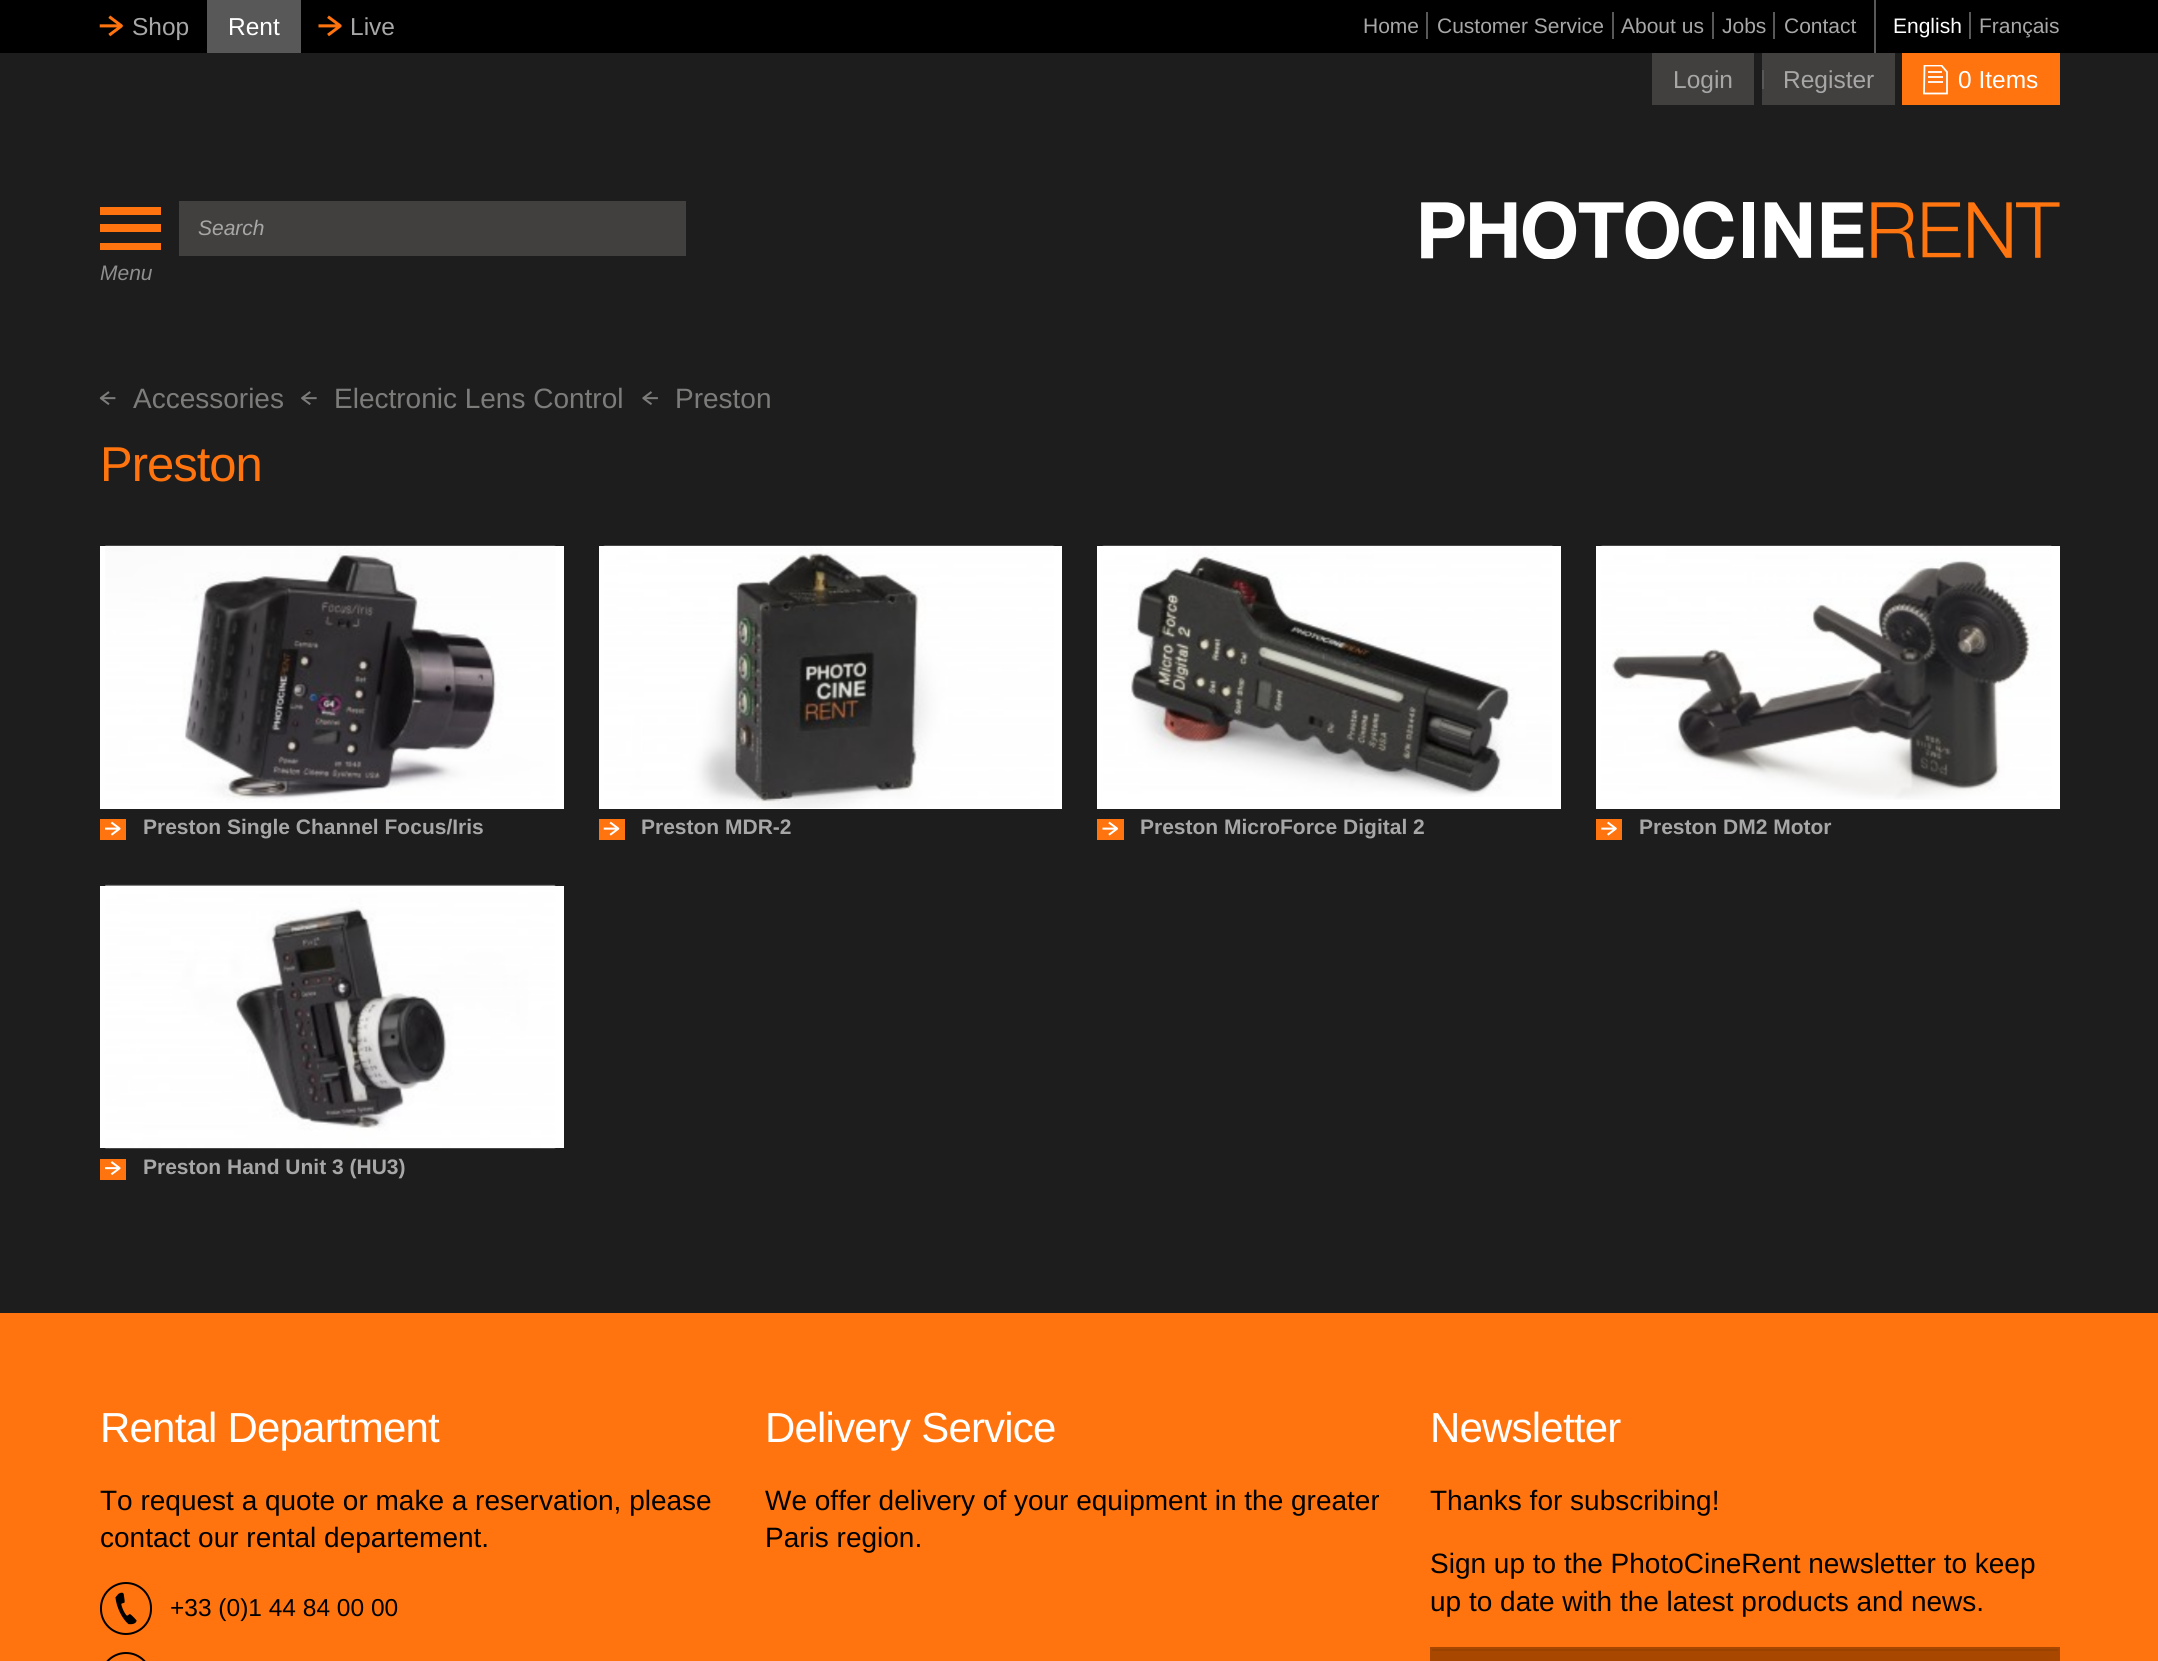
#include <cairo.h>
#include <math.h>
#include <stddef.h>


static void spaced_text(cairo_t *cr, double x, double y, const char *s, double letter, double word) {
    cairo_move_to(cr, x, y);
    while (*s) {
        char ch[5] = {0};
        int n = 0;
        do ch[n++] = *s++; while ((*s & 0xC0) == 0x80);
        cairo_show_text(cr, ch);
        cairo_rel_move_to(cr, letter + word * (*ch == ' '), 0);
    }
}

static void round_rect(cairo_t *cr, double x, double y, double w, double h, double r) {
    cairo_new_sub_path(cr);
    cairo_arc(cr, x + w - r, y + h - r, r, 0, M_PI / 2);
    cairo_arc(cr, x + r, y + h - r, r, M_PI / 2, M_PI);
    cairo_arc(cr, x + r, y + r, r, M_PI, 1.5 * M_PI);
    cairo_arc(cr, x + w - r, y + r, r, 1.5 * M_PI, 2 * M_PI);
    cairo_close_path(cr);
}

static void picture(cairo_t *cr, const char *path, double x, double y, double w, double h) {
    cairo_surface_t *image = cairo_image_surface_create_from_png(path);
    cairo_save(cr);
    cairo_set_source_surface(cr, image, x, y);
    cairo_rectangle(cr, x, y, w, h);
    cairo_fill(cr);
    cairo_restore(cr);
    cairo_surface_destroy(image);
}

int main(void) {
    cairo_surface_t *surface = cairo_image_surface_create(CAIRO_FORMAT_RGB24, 2158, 1661);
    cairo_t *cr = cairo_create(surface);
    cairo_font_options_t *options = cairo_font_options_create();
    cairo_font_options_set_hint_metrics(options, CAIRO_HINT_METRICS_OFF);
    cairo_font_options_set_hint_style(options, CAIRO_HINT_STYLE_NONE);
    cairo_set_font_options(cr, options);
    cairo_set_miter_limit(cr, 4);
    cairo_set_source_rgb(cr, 0.114, 0.114, 0.114);
    cairo_paint(cr);
    cairo_set_source_rgb(cr, 0, 0, 0);
    cairo_rectangle(cr, 0, 0, 2158, 53);
    cairo_fill(cr);
    picture(cr, "img1.png", 99, 15, 24, 22);
    cairo_select_font_face(cr, "Liberation Sans", CAIRO_FONT_SLANT_NORMAL, CAIRO_FONT_WEIGHT_NORMAL);
    cairo_set_font_size(cr, 24.5);
    cairo_set_source_rgb(cr, 0.651, 0.655, 0.651);
    cairo_move_to(cr, 132, 35);
    cairo_show_text(cr, "Shop");
    cairo_set_source_rgb(cr, 0.345, 0.345, 0.345);
    cairo_rectangle(cr, 207, 0, 94, 53);
    cairo_fill(cr);
    cairo_set_source_rgb(cr, 1, 1, 1);
    cairo_move_to(cr, 228, 35);
    cairo_show_text(cr, "Rent");
    picture(cr, "img2.png", 318, 15, 24, 22);
    cairo_set_source_rgb(cr, 0.651, 0.655, 0.651);
    cairo_move_to(cr, 350, 35);
    cairo_show_text(cr, "Live");
    cairo_set_source_rgb(cr, 0.345, 0.345, 0.345);
    cairo_rectangle(cr, 1874, 0, 2, 53);
    cairo_fill(cr);
    cairo_set_font_size(cr, 21);
    cairo_set_source_rgb(cr, 0.651, 0.655, 0.651);
    cairo_move_to(cr, 1363, 33);
    cairo_show_text(cr, "Home");
    cairo_set_source_rgb(cr, 0.345, 0.345, 0.345);
    cairo_rectangle(cr, 1426, 12, 2, 27);
    cairo_fill(cr);
    cairo_set_source_rgb(cr, 0.651, 0.655, 0.651);
    cairo_move_to(cr, 1437, 33);
    cairo_show_text(cr, "Customer Service");
    cairo_set_source_rgb(cr, 0.345, 0.345, 0.345);
    cairo_rectangle(cr, 1612, 12, 2, 27);
    cairo_fill(cr);
    cairo_set_source_rgb(cr, 0.651, 0.655, 0.651);
    cairo_move_to(cr, 1621, 33);
    cairo_show_text(cr, "About us");
    cairo_set_source_rgb(cr, 0.345, 0.345, 0.345);
    cairo_rectangle(cr, 1712, 12, 2, 27);
    cairo_fill(cr);
    cairo_set_source_rgb(cr, 0.651, 0.655, 0.651);
    cairo_move_to(cr, 1722, 33);
    cairo_show_text(cr, "Jobs");
    cairo_set_source_rgb(cr, 0.345, 0.345, 0.345);
    cairo_rectangle(cr, 1773, 12, 2, 27);
    cairo_fill(cr);
    cairo_set_source_rgb(cr, 0.651, 0.655, 0.651);
    cairo_move_to(cr, 1784, 33);
    cairo_show_text(cr, "Contact");
    cairo_set_source_rgb(cr, 1, 1, 1);
    cairo_move_to(cr, 1893, 33);
    cairo_show_text(cr, "English");
    cairo_set_source_rgb(cr, 0.345, 0.345, 0.345);
    cairo_rectangle(cr, 1969, 12, 2, 27);
    cairo_fill(cr);
    cairo_set_source_rgb(cr, 0.651, 0.655, 0.651);
    cairo_move_to(cr, 1979, 33);
    cairo_show_text(cr, "Français");
    cairo_set_source_rgb(cr, 0.259, 0.251, 0.247);
    cairo_rectangle(cr, 1652, 53, 102, 52);
    cairo_fill(cr);
    cairo_set_font_size(cr, 24.5);
    cairo_set_source_rgb(cr, 0.651, 0.655, 0.651);
    cairo_move_to(cr, 1673, 88);
    cairo_show_text(cr, "Login");
    cairo_set_source_rgb(cr, 0.259, 0.251, 0.247);
    cairo_rectangle(cr, 1762, 53, 133, 52);
    cairo_fill(cr);
    cairo_set_source_rgb(cr, 0.345, 0.345, 0.345);
    cairo_rectangle(cr, 1762, 70, 2, 19);
    cairo_fill(cr);
    cairo_set_source_rgb(cr, 0.651, 0.655, 0.651);
    cairo_move_to(cr, 1783, 88);
    cairo_show_text(cr, "Register");
    cairo_set_source_rgb(cr, 1, 0.455, 0.055);
    cairo_rectangle(cr, 1902, 53, 158, 52);
    cairo_fill(cr);
    cairo_set_source_rgb(cr, 1, 1, 1);
    cairo_move_to(cr, 1958, 88);
    cairo_show_text(cr, "0 Items");
    cairo_save(cr);
    cairo_rectangle(cr, 1923, 65, 25, 30);
    cairo_clip(cr);
    cairo_new_path(cr);
    cairo_move_to(cr, 1924.5, 65.5);
    cairo_line_to(cr, 1941.5, 65.5);
    cairo_line_to(cr, 1947, 72);
    cairo_line_to(cr, 1947, 93.5);
    cairo_line_to(cr, 1924, 93.5);
    cairo_close_path(cr);
    cairo_set_line_width(cr, 1.8);
    cairo_stroke(cr);
    cairo_restore(cr);
    cairo_set_source_rgb(cr, 1, 0.945, 0.906);
    cairo_rectangle(cr, 1928, 81, 15, 2);
    cairo_fill(cr);
    cairo_rectangle(cr, 1928, 76, 15, 2);
    cairo_fill(cr);
    cairo_rectangle(cr, 1928, 71, 14, 2);
    cairo_fill(cr);
    cairo_set_source_rgb(cr, 1, 0.455, 0.055);
    cairo_new_path(cr);
    cairo_move_to(cr, 100, 232);
    cairo_line_to(cr, 161, 232);
    cairo_line_to(cr, 161, 224);
    cairo_line_to(cr, 100, 224);
    cairo_fill(cr);
    cairo_save(cr);
    cairo_rectangle(cr, 100, 207, 61, 43);
    cairo_clip(cr);
    cairo_new_path(cr);
    cairo_move_to(cr, 100, 251);
    cairo_line_to(cr, 161, 251);
    cairo_line_to(cr, 161, 243);
    cairo_line_to(cr, 100, 243);
    cairo_fill(cr);
    cairo_restore(cr);
    cairo_new_path(cr);
    cairo_move_to(cr, 100, 215);
    cairo_line_to(cr, 161, 215);
    cairo_line_to(cr, 161, 207);
    cairo_line_to(cr, 100, 207);
    cairo_fill(cr);
    cairo_set_source_rgb(cr, 0.259, 0.251, 0.247);
    cairo_rectangle(cr, 179, 201, 507, 55);
    cairo_fill(cr);
    cairo_select_font_face(cr, "Liberation Sans", CAIRO_FONT_SLANT_ITALIC, CAIRO_FONT_WEIGHT_NORMAL);
    cairo_set_font_size(cr, 21);
    cairo_set_source_rgb(cr, 0.651, 0.655, 0.651);
    cairo_move_to(cr, 198, 235);
    cairo_show_text(cr, "Search");
    cairo_set_source_rgb(cr, 0.557, 0.557, 0.557);
    cairo_move_to(cr, 100, 280);
    cairo_show_text(cr, "Menu");
    picture(cr, "img3.png", 1421, 201, 639, 58);
    picture(cr, "img4.png", 99, 391, 17, 14);
    cairo_select_font_face(cr, "Liberation Sans", CAIRO_FONT_SLANT_NORMAL, CAIRO_FONT_WEIGHT_NORMAL);
    cairo_set_font_size(cr, 28);
    cairo_set_source_rgb(cr, 0.486, 0.486, 0.482);
    cairo_move_to(cr, 133, 408);
    cairo_show_text(cr, "Accessories");
    picture(cr, "img5.png", 301, 391, 16, 14);
    cairo_move_to(cr, 334, 408);
    cairo_show_text(cr, "Electronic Lens Control");
    picture(cr, "img6.png", 642, 391, 16, 14);
    cairo_move_to(cr, 675, 408);
    cairo_show_text(cr, "Preston");
    cairo_set_font_size(cr, 49);
    cairo_set_source_rgb(cr, 1, 0.455, 0.055);
    spaced_text(cr, 100, 481, "Preston", -1, 0);
    cairo_set_source_rgb(cr, 1, 1, 1);
    cairo_rectangle(cr, 100, 546, 464, 263);
    cairo_fill(cr);
    picture(cr, "img7.png", 105, 545, 451, 258);
    cairo_set_source_rgb(cr, 1, 0.455, 0.055);
    cairo_rectangle(cr, 100, 819, 26, 21);
    cairo_fill(cr);
    picture(cr, "img8.png", 105, 821, 16, 15);
    cairo_select_font_face(cr, "Liberation Sans", CAIRO_FONT_SLANT_NORMAL, CAIRO_FONT_WEIGHT_BOLD);
    cairo_set_font_size(cr, 21);
    cairo_set_source_rgb(cr, 0.651, 0.655, 0.651);
    cairo_move_to(cr, 143, 834);
    cairo_show_text(cr, "Preston Single Channel Focus/Iris");
    cairo_set_source_rgb(cr, 1, 1, 1);
    cairo_rectangle(cr, 599, 546, 463, 263);
    cairo_fill(cr);
    picture(cr, "img9.png", 603, 545, 452, 263);
    cairo_set_source_rgb(cr, 1, 0.455, 0.055);
    cairo_rectangle(cr, 599, 819, 26, 21);
    cairo_fill(cr);
    picture(cr, "img10.png", 603, 821, 17, 15);
    cairo_set_source_rgb(cr, 0.651, 0.655, 0.651);
    cairo_move_to(cr, 641, 834);
    cairo_show_text(cr, "Preston MDR-2");
    cairo_set_source_rgb(cr, 1, 1, 1);
    cairo_rectangle(cr, 1097, 546, 464, 263);
    cairo_fill(cr);
    picture(cr, "img11.png", 1102, 545, 451, 252);
    cairo_set_source_rgb(cr, 1, 0.455, 0.055);
    cairo_rectangle(cr, 1097, 819, 27, 21);
    cairo_fill(cr);
    picture(cr, "img12.png", 1102, 821, 17, 15);
    cairo_set_source_rgb(cr, 0.651, 0.655, 0.651);
    cairo_move_to(cr, 1140, 834);
    cairo_show_text(cr, "Preston MicroForce Digital 2");
    cairo_set_source_rgb(cr, 1, 1, 1);
    cairo_rectangle(cr, 1596, 546, 464, 263);
    cairo_fill(cr);
    picture(cr, "img13.png", 1601, 545, 451, 255);
    cairo_set_source_rgb(cr, 1, 0.455, 0.055);
    cairo_rectangle(cr, 1596, 819, 26, 21);
    cairo_fill(cr);
    picture(cr, "img14.png", 1601, 821, 16, 15);
    cairo_set_source_rgb(cr, 0.651, 0.655, 0.651);
    cairo_move_to(cr, 1639, 834);
    cairo_show_text(cr, "Preston DM2 Motor");
    cairo_set_source_rgb(cr, 1, 1, 1);
    cairo_rectangle(cr, 100, 886, 464, 262);
    cairo_fill(cr);
    picture(cr, "img15.png", 105, 884, 451, 265);
    cairo_set_source_rgb(cr, 1, 0.455, 0.055);
    cairo_rectangle(cr, 100, 1159, 26, 21);
    cairo_fill(cr);
    picture(cr, "img16.png", 105, 1161, 16, 14);
    cairo_set_source_rgb(cr, 0.651, 0.655, 0.651);
    cairo_move_to(cr, 143, 1174);
    cairo_show_text(cr, "Preston Hand Unit 3 (HU3)");
    cairo_set_source_rgb(cr, 1, 0.455, 0.055);
    cairo_rectangle(cr, 0, 1313, 2158, 348);
    cairo_fill(cr);
    cairo_select_font_face(cr, "Liberation Sans", CAIRO_FONT_SLANT_NORMAL, CAIRO_FONT_WEIGHT_NORMAL);
    cairo_set_font_size(cr, 42);
    cairo_set_source_rgb(cr, 1, 1, 1);
    spaced_text(cr, 100, 1442, "Rental Department", -0.8, 0);
    cairo_set_font_size(cr, 28);
    cairo_set_source_rgb(cr, 0, 0, 0);
    cairo_move_to(cr, 100, 1510);
    cairo_show_text(cr, "To request a quote or make a reservation, please");
    cairo_move_to(cr, 100, 1547);
    cairo_show_text(cr, "contact our rental departement.");
    round_rect(cr, 101, 1583, 50, 51, 25);
    cairo_stroke(cr);
    picture(cr, "img17.png", 115, 1592, 22, 33);
    cairo_set_font_size(cr, 24.5);
    cairo_move_to(cr, 170, 1616);
    cairo_show_text(cr, "+33 (0)1 44 84 00 00");
    round_rect(cr, 101, 1653, 50, 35, 25);
    cairo_stroke(cr);
    cairo_set_font_size(cr, 42);
    cairo_set_source_rgb(cr, 1, 1, 1);
    spaced_text(cr, 765, 1442, "Delivery Service", -0.8, 0);
    cairo_set_font_size(cr, 28);
    cairo_set_source_rgb(cr, 0, 0, 0);
    cairo_move_to(cr, 765, 1510);
    cairo_show_text(cr, "We offer delivery of your equipment in the greater");
    cairo_move_to(cr, 765, 1547);
    cairo_show_text(cr, "Paris region.");
    cairo_set_font_size(cr, 42);
    cairo_set_source_rgb(cr, 1, 1, 1);
    spaced_text(cr, 1430, 1442, "Newsletter", -0.8, 0);
    cairo_set_font_size(cr, 28);
    cairo_set_source_rgb(cr, 0, 0, 0);
    cairo_move_to(cr, 1430, 1510);
    cairo_show_text(cr, "Thanks for subscribing!");
    cairo_move_to(cr, 1430, 1573);
    cairo_show_text(cr, "Sign up to the PhotoCineRent newsletter to keep");
    cairo_move_to(cr, 1430, 1611);
    cairo_show_text(cr, "up to date with the latest products and news.");
    cairo_set_source_rgb(cr, 0.655, 0.278, 0);
    cairo_rectangle(cr, 1430, 1647, 630, 14);
    cairo_fill(cr);
    cairo_set_source_rgb(cr, 0.604, 0.259, 0);
    cairo_rectangle(cr, 1432, 1649, 626, 2);
    cairo_fill(cr);
    cairo_surface_write_to_png(surface, "page.png");
    cairo_font_options_destroy(options);
    cairo_destroy(cr);
    cairo_surface_destroy(surface);
    return 0;
}
